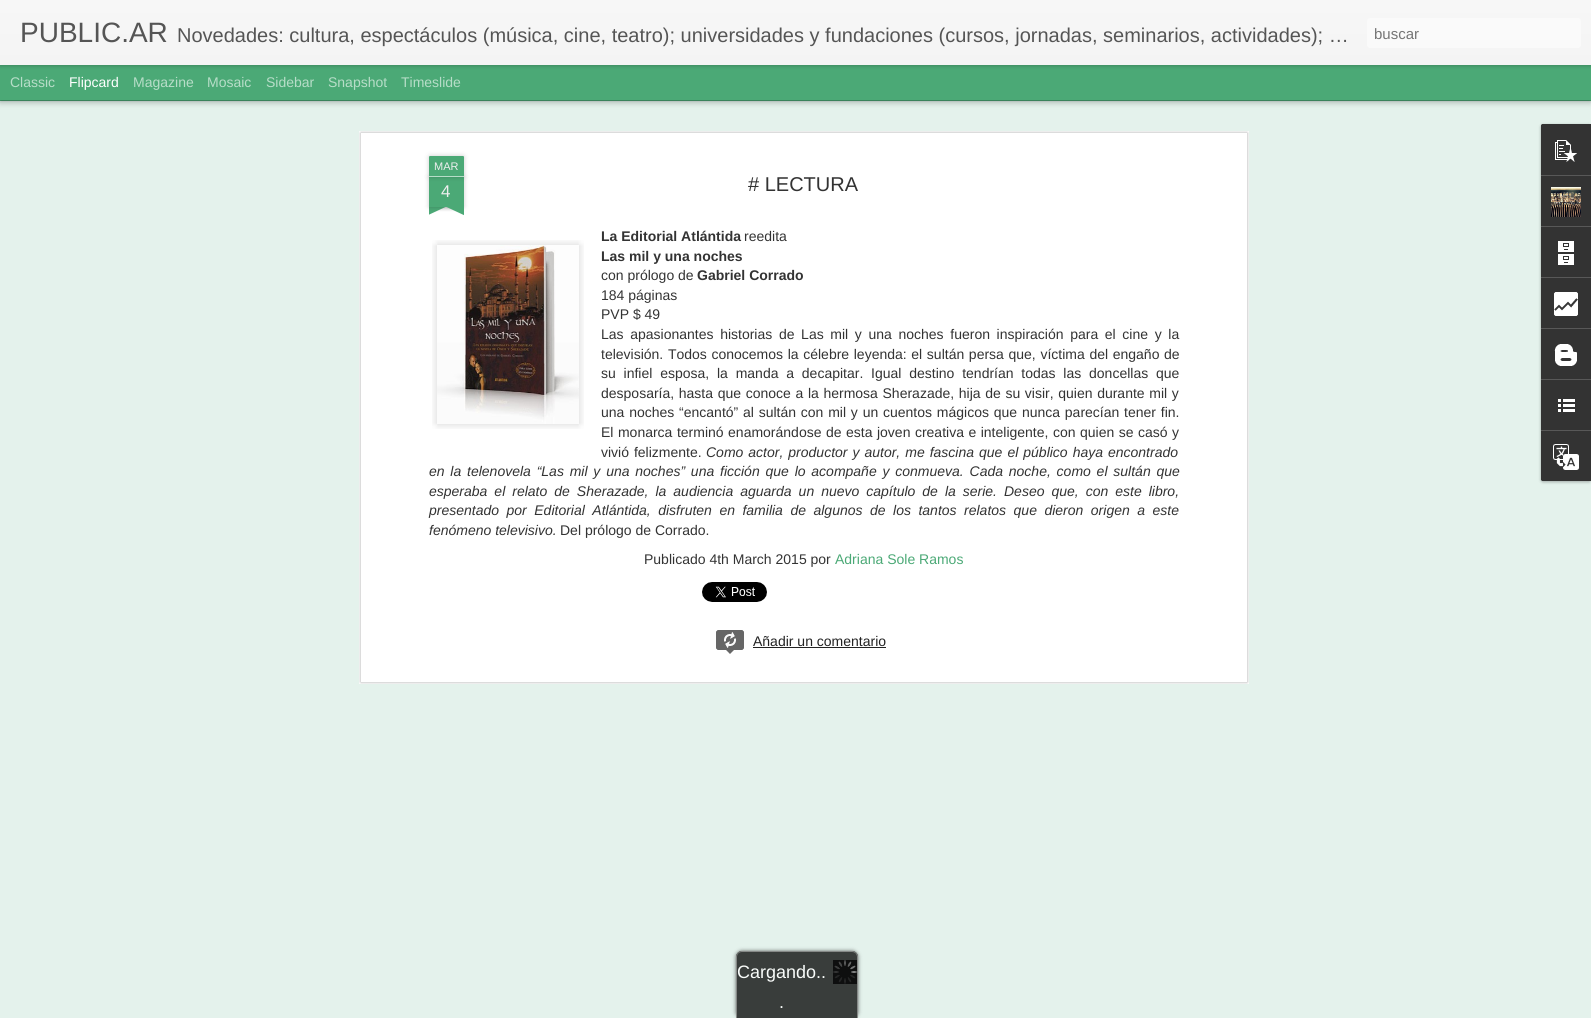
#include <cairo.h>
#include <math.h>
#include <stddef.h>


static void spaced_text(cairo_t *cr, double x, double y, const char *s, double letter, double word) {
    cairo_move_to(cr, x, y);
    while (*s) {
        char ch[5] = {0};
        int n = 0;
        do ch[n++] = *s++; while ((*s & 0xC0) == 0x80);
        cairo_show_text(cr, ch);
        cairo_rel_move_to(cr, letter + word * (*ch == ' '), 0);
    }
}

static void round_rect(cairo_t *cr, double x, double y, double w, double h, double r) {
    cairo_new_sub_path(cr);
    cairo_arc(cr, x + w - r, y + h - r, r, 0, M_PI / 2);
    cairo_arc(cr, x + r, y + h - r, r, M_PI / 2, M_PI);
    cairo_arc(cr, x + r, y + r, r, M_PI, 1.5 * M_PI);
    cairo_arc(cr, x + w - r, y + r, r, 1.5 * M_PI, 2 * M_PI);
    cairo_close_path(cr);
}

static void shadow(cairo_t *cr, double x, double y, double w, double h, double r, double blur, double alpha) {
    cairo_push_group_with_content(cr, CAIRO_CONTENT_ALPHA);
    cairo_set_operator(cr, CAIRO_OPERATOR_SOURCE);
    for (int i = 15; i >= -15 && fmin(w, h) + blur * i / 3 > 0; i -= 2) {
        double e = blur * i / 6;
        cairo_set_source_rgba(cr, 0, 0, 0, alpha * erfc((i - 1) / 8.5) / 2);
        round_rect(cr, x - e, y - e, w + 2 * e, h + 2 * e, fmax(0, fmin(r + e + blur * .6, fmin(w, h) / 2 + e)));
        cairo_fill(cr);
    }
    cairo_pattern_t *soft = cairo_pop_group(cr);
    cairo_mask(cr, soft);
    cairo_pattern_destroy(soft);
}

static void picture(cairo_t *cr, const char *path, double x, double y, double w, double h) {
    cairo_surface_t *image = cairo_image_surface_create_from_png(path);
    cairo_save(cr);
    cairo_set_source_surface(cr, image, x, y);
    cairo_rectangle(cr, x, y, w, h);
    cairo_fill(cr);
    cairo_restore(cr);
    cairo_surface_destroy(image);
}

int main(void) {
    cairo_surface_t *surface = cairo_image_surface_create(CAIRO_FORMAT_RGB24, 1591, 1018);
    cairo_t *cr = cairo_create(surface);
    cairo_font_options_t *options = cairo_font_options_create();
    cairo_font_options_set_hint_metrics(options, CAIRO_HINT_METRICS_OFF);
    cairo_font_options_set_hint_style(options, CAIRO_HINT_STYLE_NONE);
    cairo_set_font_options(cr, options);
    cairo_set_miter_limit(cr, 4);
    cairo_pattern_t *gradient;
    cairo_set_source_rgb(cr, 0.294, 0.663, 0.463);
    cairo_paint(cr);
    cairo_set_source_rgb(cr, 0.894, 0.949, 0.922);
    cairo_rectangle(cr, 0, 101, 1591, 917);
    cairo_fill(cr);
    cairo_set_source_rgb(cr, 0, 0, 0);
    shadow(cr, 0, 65, 1591, 35, 0, 4, 0.5);
    cairo_set_source_rgb(cr, 0.294, 0.663, 0.463);
    cairo_rectangle(cr, 0, 65, 1591, 35);
    cairo_fill(cr);
    cairo_set_source_rgb(cr, 0, 0, 0);
    shadow(cr, 0, 0, 1591, 65, 0, 2.5, 0.3);
    gradient = cairo_pattern_create_linear(0, 0, 0, 65);
    cairo_pattern_add_color_stop_rgba(gradient, 0, 0.969, 0.969, 0.969, 1);
    cairo_pattern_add_color_stop_rgba(gradient, 1, 0.957, 0.957, 0.957, 1);
    cairo_set_source(cr, gradient);
    cairo_pattern_destroy(gradient);
    cairo_rectangle(cr, 0, 0, 1591, 65);
    cairo_fill(cr);
    cairo_select_font_face(cr, "Liberation Sans", CAIRO_FONT_SLANT_NORMAL, CAIRO_FONT_WEIGHT_NORMAL);
    cairo_set_font_size(cr, 28);
    cairo_set_source_rgb(cr, 0.333, 0.333, 0.333);
    cairo_move_to(cr, 20, 42);
    cairo_show_text(cr, "PUBLIC.AR");
    cairo_set_font_size(cr, 20);
    cairo_move_to(cr, 177, 42);
    cairo_show_text(cr, "Novedades: cultura, espectáculos (música, cine, teatro); universidades y fundaciones (cursos, jornadas, seminarios, actividades); …");
    cairo_set_source_rgb(cr, 0.98, 0.98, 0.98);
    round_rect(cr, 1367, 18, 214, 30, 3);
    cairo_fill(cr);
    cairo_set_font_size(cr, 15);
    cairo_set_source_rgb(cr, 0.459, 0.459, 0.459);
    cairo_move_to(cr, 1374, 39);
    cairo_show_text(cr, "buscar");
    cairo_set_font_size(cr, 14);
    cairo_set_source_rgb(cr, 0.718, 0.867, 0.784);
    cairo_move_to(cr, 10, 87);
    cairo_show_text(cr, "Classic");
    cairo_set_source_rgb(cr, 1, 1, 1);
    cairo_move_to(cr, 69, 87);
    cairo_show_text(cr, "Flipcard");
    cairo_set_source_rgb(cr, 0.718, 0.867, 0.784);
    cairo_move_to(cr, 133, 87);
    cairo_show_text(cr, "Magazine");
    cairo_move_to(cr, 207, 87);
    cairo_show_text(cr, "Mosaic");
    cairo_move_to(cr, 266, 87);
    cairo_show_text(cr, "Sidebar");
    cairo_move_to(cr, 328, 87);
    cairo_show_text(cr, "Snapshot");
    cairo_move_to(cr, 401, 87);
    cairo_show_text(cr, "Timeslide");
    cairo_set_source_rgb(cr, 1, 1, 1);
    cairo_rectangle(cr, 359, 131, 890, 553);
    cairo_fill(cr);
    picture(cr, "img1.png", 359, 131, 890, 553);
    cairo_set_source_rgb(cr, 0, 0, 0);
    shadow(cr, 429, 177, 35, 30, 0, 2.5, 0.2);
    cairo_set_source_rgb(cr, 0.294, 0.663, 0.463);
    cairo_rectangle(cr, 429, 177, 35, 30);
    cairo_fill(cr);
    cairo_set_source_rgb(cr, 0, 0, 0);
    shadow(cr, 429, 156, 35, 21, 1, 2.5, 0.2);
    cairo_set_source_rgb(cr, 0.294, 0.663, 0.463);
    cairo_new_path(cr);
    cairo_move_to(cr, 430, 156);
    cairo_line_to(cr, 463, 156);
    cairo_curve_to(cr, 463.5, 156, 464, 156.5, 464, 157);
    cairo_line_to(cr, 464, 177);
    cairo_line_to(cr, 429, 177);
    cairo_line_to(cr, 429, 157);
    cairo_curve_to(cr, 429, 156.5, 429.5, 156, 430, 156);
    cairo_close_path(cr);
    cairo_fill(cr);
    cairo_set_source_rgb(cr, 0.718, 0.867, 0.784);
    cairo_rectangle(cr, 429, 176, 35, 1);
    cairo_fill(cr);
    cairo_set_font_size(cr, 11);
    cairo_set_source_rgb(cr, 0.933, 0.933, 0.933);
    cairo_move_to(cr, 434, 170);
    cairo_show_text(cr, "MAR");
    cairo_set_font_size(cr, 17);
    cairo_move_to(cr, 441, 197);
    cairo_show_text(cr, "4");
    cairo_save(cr);
    cairo_rectangle(cr, 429, 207, 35, 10);
    cairo_clip(cr);
    cairo_set_source_rgb(cr, 0, 0, 0);
    shadow(cr, 420, 197, 50, 10, 0, 2.5, 0.2);
    cairo_restore(cr);
    cairo_save(cr);
    cairo_rectangle(cr, 429, 207, 35, 10);
    cairo_clip(cr);
    cairo_set_source_rgb(cr, 0.294, 0.663, 0.463);
    cairo_new_path(cr);
    cairo_move_to(cr, 420, 208);
    cairo_line_to(cr, 465, 187);
    cairo_line_to(cr, 469, 196);
    cairo_line_to(cr, 424, 217);
    cairo_close_path(cr);
    cairo_fill(cr);
    cairo_restore(cr);
    cairo_save(cr);
    cairo_rectangle(cr, 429, 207, 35, 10);
    cairo_clip(cr);
    cairo_set_source_rgb(cr, 0, 0, 0);
    shadow(cr, 423, 197, 50, 10, 0, 2.5, 0.2);
    cairo_restore(cr);
    cairo_save(cr);
    cairo_rectangle(cr, 429, 207, 35, 10);
    cairo_clip(cr);
    cairo_set_source_rgb(cr, 0.294, 0.663, 0.463);
    cairo_new_path(cr);
    cairo_move_to(cr, 427, 187);
    cairo_line_to(cr, 472, 208);
    cairo_line_to(cr, 468, 217);
    cairo_line_to(cr, 423, 196);
    cairo_close_path(cr);
    cairo_fill(cr);
    cairo_restore(cr);
    cairo_set_font_size(cr, 20);
    cairo_set_source_rgb(cr, 0.2, 0.2, 0.2);
    cairo_move_to(cr, 748, 191);
    cairo_show_text(cr, "# LECTURA");
    cairo_select_font_face(cr, "Liberation Sans", CAIRO_FONT_SLANT_NORMAL, CAIRO_FONT_WEIGHT_BOLD);
    cairo_set_font_size(cr, 14);
    cairo_move_to(cr, 601, 241);
    cairo_show_text(cr, "La Editorial Atlántida");
    cairo_select_font_face(cr, "Liberation Sans", CAIRO_FONT_SLANT_NORMAL, CAIRO_FONT_WEIGHT_NORMAL);
    cairo_move_to(cr, 744, 241);
    cairo_show_text(cr, "reedita");
    picture(cr, "img2.png", 432, 240, 152, 189);
    picture(cr, "img3.png", 465, 246, 91, 165);
    cairo_select_font_face(cr, "Liberation Sans", CAIRO_FONT_SLANT_NORMAL, CAIRO_FONT_WEIGHT_BOLD);
    cairo_move_to(cr, 601, 261);
    cairo_show_text(cr, "Las mil y una noches");
    cairo_select_font_face(cr, "Liberation Sans", CAIRO_FONT_SLANT_NORMAL, CAIRO_FONT_WEIGHT_NORMAL);
    cairo_move_to(cr, 601, 280);
    cairo_show_text(cr, "con prólogo de");
    cairo_select_font_face(cr, "Liberation Sans", CAIRO_FONT_SLANT_NORMAL, CAIRO_FONT_WEIGHT_BOLD);
    cairo_move_to(cr, 697, 280);
    cairo_show_text(cr, "Gabriel Corrado");
    cairo_select_font_face(cr, "Liberation Sans", CAIRO_FONT_SLANT_NORMAL, CAIRO_FONT_WEIGHT_NORMAL);
    cairo_move_to(cr, 601, 300);
    cairo_show_text(cr, "184 páginas");
    cairo_move_to(cr, 601, 319);
    cairo_show_text(cr, "PVP $ 49");
    spaced_text(cr, 601, 339, "Las apasionantes historias de Las mil y una noches fueron inspiración para el cine y la", 0, 2.75);
    spaced_text(cr, 601, 359, "televisión. Todos conocemos la célebre leyenda: el sultán persa que, víctima del engaño de", 0, 0.75);
    spaced_text(cr, 601, 378, "su infiel esposa, la manda a decapitar. Igual destino tendrían todas las doncellas que", 0, 3.9);
    spaced_text(cr, 601, 398, "desposaría, hasta que conoce a la hermosa Sherazade, hija de su visir, quien durante mil y", 0, 0.75);
    spaced_text(cr, 601, 417, "una noches “encantó” al sultán con mil y un cuentos mágicos que nunca parecían tener fin.", 0, 0.9);
    spaced_text(cr, 601, 437, "El monarca terminó enamorándose de esta joven creativa e inteligente, con quien se casó y", 0, 0.6);
    spaced_text(cr, 601, 457, "vivió felizmente.", 0, 1);
    cairo_select_font_face(cr, "Liberation Sans", CAIRO_FONT_SLANT_ITALIC, CAIRO_FONT_WEIGHT_NORMAL);
    spaced_text(cr, 706, 457, "Como actor, productor y autor, me fascina que el público haya encontrado", 0, 1.1);
    spaced_text(cr, 429, 476, "en la telenovela “Las mil y una noches” una ficción que lo acompañe y conmueva. Cada noche, como el sultán que", 0, 1.9);
    spaced_text(cr, 429, 496, "esperaba el relato de Sherazade, la audiencia aguarda un nuevo capítulo de la serie. Deseo que, con este libro,", 0, 3.1);
    spaced_text(cr, 429, 515, "presentado por Editorial Atlántida, disfruten en familia de algunos de los tantos relatos que dieron origen a este", 0, 3.6);
    cairo_move_to(cr, 429, 535);
    cairo_show_text(cr, "fenómeno televisivo.");
    cairo_select_font_face(cr, "Liberation Sans", CAIRO_FONT_SLANT_NORMAL, CAIRO_FONT_WEIGHT_NORMAL);
    cairo_move_to(cr, 560, 535);
    cairo_show_text(cr, "Del prólogo de Corrado.");
    cairo_move_to(cr, 644, 564);
    cairo_show_text(cr, "Publicado 4th March 2015 por");
    cairo_set_source_rgb(cr, 0.294, 0.663, 0.463);
    cairo_move_to(cr, 835, 564);
    cairo_show_text(cr, "Adriana Sole Ramos");
    picture(cr, "img4.png", 702, 582, 65, 20);
    cairo_set_source_rgb(cr, 0.4, 0.4, 0.4);
    round_rect(cr, 716, 630, 28, 20, 3);
    cairo_fill(cr);
    picture(cr, "img5.png", 724, 632, 12, 16);
    round_rect(cr, 716.5, 630.5, 27, 19, 2.5);
    cairo_set_line_width(cr, 1);
    cairo_stroke(cr);
    cairo_new_path(cr);
    cairo_move_to(cr, 725, 649);
    cairo_line_to(cr, 735, 649);
    cairo_line_to(cr, 730, 654);
    cairo_close_path(cr);
    cairo_fill(cr);
    cairo_set_source_rgb(cr, 0.133, 0.133, 0.133);
    cairo_move_to(cr, 753, 646);
    cairo_show_text(cr, "Añadir un comentario");
    cairo_rectangle(cr, 753, 647, 133, 1);
    cairo_fill(cr);
    cairo_set_source_rgb(cr, 0, 0, 0);
    shadow(cr, 1541, 125, 50, 357, 2, 1.5, 0.3);
    cairo_set_source_rgb(cr, 0.2, 0.2, 0.2);
    cairo_new_path(cr);
    cairo_move_to(cr, 1543, 124);
    cairo_line_to(cr, 1591, 124);
    cairo_line_to(cr, 1591, 481);
    cairo_line_to(cr, 1543, 481);
    cairo_curve_to(cr, 1542, 481, 1541, 480, 1541, 479);
    cairo_line_to(cr, 1541, 126);
    cairo_curve_to(cr, 1541, 125, 1542, 124, 1543, 124);
    cairo_close_path(cr);
    cairo_fill(cr);
    cairo_new_path(cr);
    cairo_move_to(cr, 1543, 124);
    cairo_line_to(cr, 1591, 124);
    cairo_line_to(cr, 1591, 175);
    cairo_line_to(cr, 1541, 175);
    cairo_line_to(cr, 1541, 126);
    cairo_curve_to(cr, 1541, 125, 1542, 124, 1543, 124);
    cairo_close_path(cr);
    cairo_fill(cr);
    picture(cr, "img6.png", 1555, 140, 22, 22);
    cairo_set_source_rgb(cr, 0.345, 0.345, 0.345);
    cairo_rectangle(cr, 1541, 175, 50, 1);
    cairo_fill(cr);
    picture(cr, "img7.png", 1551, 187, 30, 30);
    cairo_rectangle(cr, 1541, 226, 50, 1);
    cairo_fill(cr);
    picture(cr, "img8.png", 1558, 241, 16, 24);
    cairo_rectangle(cr, 1541, 277, 50, 1);
    cairo_fill(cr);
    picture(cr, "img9.png", 1554, 292, 24, 24);
    cairo_rectangle(cr, 1541, 328, 50, 1);
    cairo_fill(cr);
    picture(cr, "img10.png", 1554, 344, 23, 22);
    cairo_rectangle(cr, 1541, 379, 50, 1);
    cairo_fill(cr);
    picture(cr, "img11.png", 1558, 399, 17, 13);
    cairo_set_source_rgb(cr, 0.2, 0.2, 0.2);
    cairo_new_path(cr);
    cairo_move_to(cr, 1541, 430);
    cairo_line_to(cr, 1591, 430);
    cairo_line_to(cr, 1591, 481);
    cairo_line_to(cr, 1543, 481);
    cairo_curve_to(cr, 1542, 481, 1541, 480, 1541, 479);
    cairo_close_path(cr);
    cairo_fill(cr);
    cairo_set_source_rgb(cr, 0.345, 0.345, 0.345);
    cairo_rectangle(cr, 1541, 430, 50, 1);
    cairo_fill(cr);
    picture(cr, "img12.png", 1553, 444, 26, 26);
    cairo_set_source_rgb(cr, 0.373, 0.388, 0.38);
    shadow(cr, 736, 951, 122, 67, 6, 2, 1);
    cairo_set_source_rgb(cr, 0.224, 0.239, 0.231);
    cairo_new_path(cr);
    cairo_move_to(cr, 742, 951);
    cairo_line_to(cr, 852, 951);
    cairo_curve_to(cr, 855.5, 951, 858, 953.5, 858, 957);
    cairo_line_to(cr, 858, 1018);
    cairo_line_to(cr, 736, 1018);
    cairo_line_to(cr, 736, 957);
    cairo_curve_to(cr, 736, 953.5, 738.5, 951, 742, 951);
    cairo_close_path(cr);
    cairo_fill(cr);
    cairo_set_source_rgb(cr, 0.525, 0.537, 0.529);
    cairo_set_fill_rule(cr, CAIRO_FILL_RULE_EVEN_ODD);
    cairo_new_path(cr);
    cairo_move_to(cr, 742, 951);
    cairo_line_to(cr, 852, 951);
    cairo_curve_to(cr, 855, 951, 858, 954, 858, 957);
    cairo_line_to(cr, 858, 1018);
    cairo_line_to(cr, 736, 1018);
    cairo_line_to(cr, 736, 957);
    cairo_curve_to(cr, 736, 954, 739, 951, 742, 951);
    cairo_close_path(cr);
    cairo_move_to(cr, 742, 952);
    cairo_line_to(cr, 852, 952);
    cairo_curve_to(cr, 855, 952, 857, 954, 857, 957);
    cairo_line_to(cr, 857, 1018);
    cairo_line_to(cr, 737, 1018);
    cairo_line_to(cr, 737, 957);
    cairo_curve_to(cr, 737, 954, 739, 952, 742, 952);
    cairo_close_path(cr);
    cairo_fill(cr);
    picture(cr, "img13.png", 833, 960, 24, 24);
    cairo_set_font_size(cr, 18);
    cairo_set_source_rgb(cr, 0.973, 0.988, 0.98);
    cairo_move_to(cr, 737, 978);
    cairo_show_text(cr, "Cargando..");
    cairo_move_to(cr, 779, 1008);
    cairo_show_text(cr, ".");
    cairo_surface_write_to_png(surface, "page.png");
    cairo_font_options_destroy(options);
    cairo_destroy(cr);
    cairo_surface_destroy(surface);
    return 0;
}
